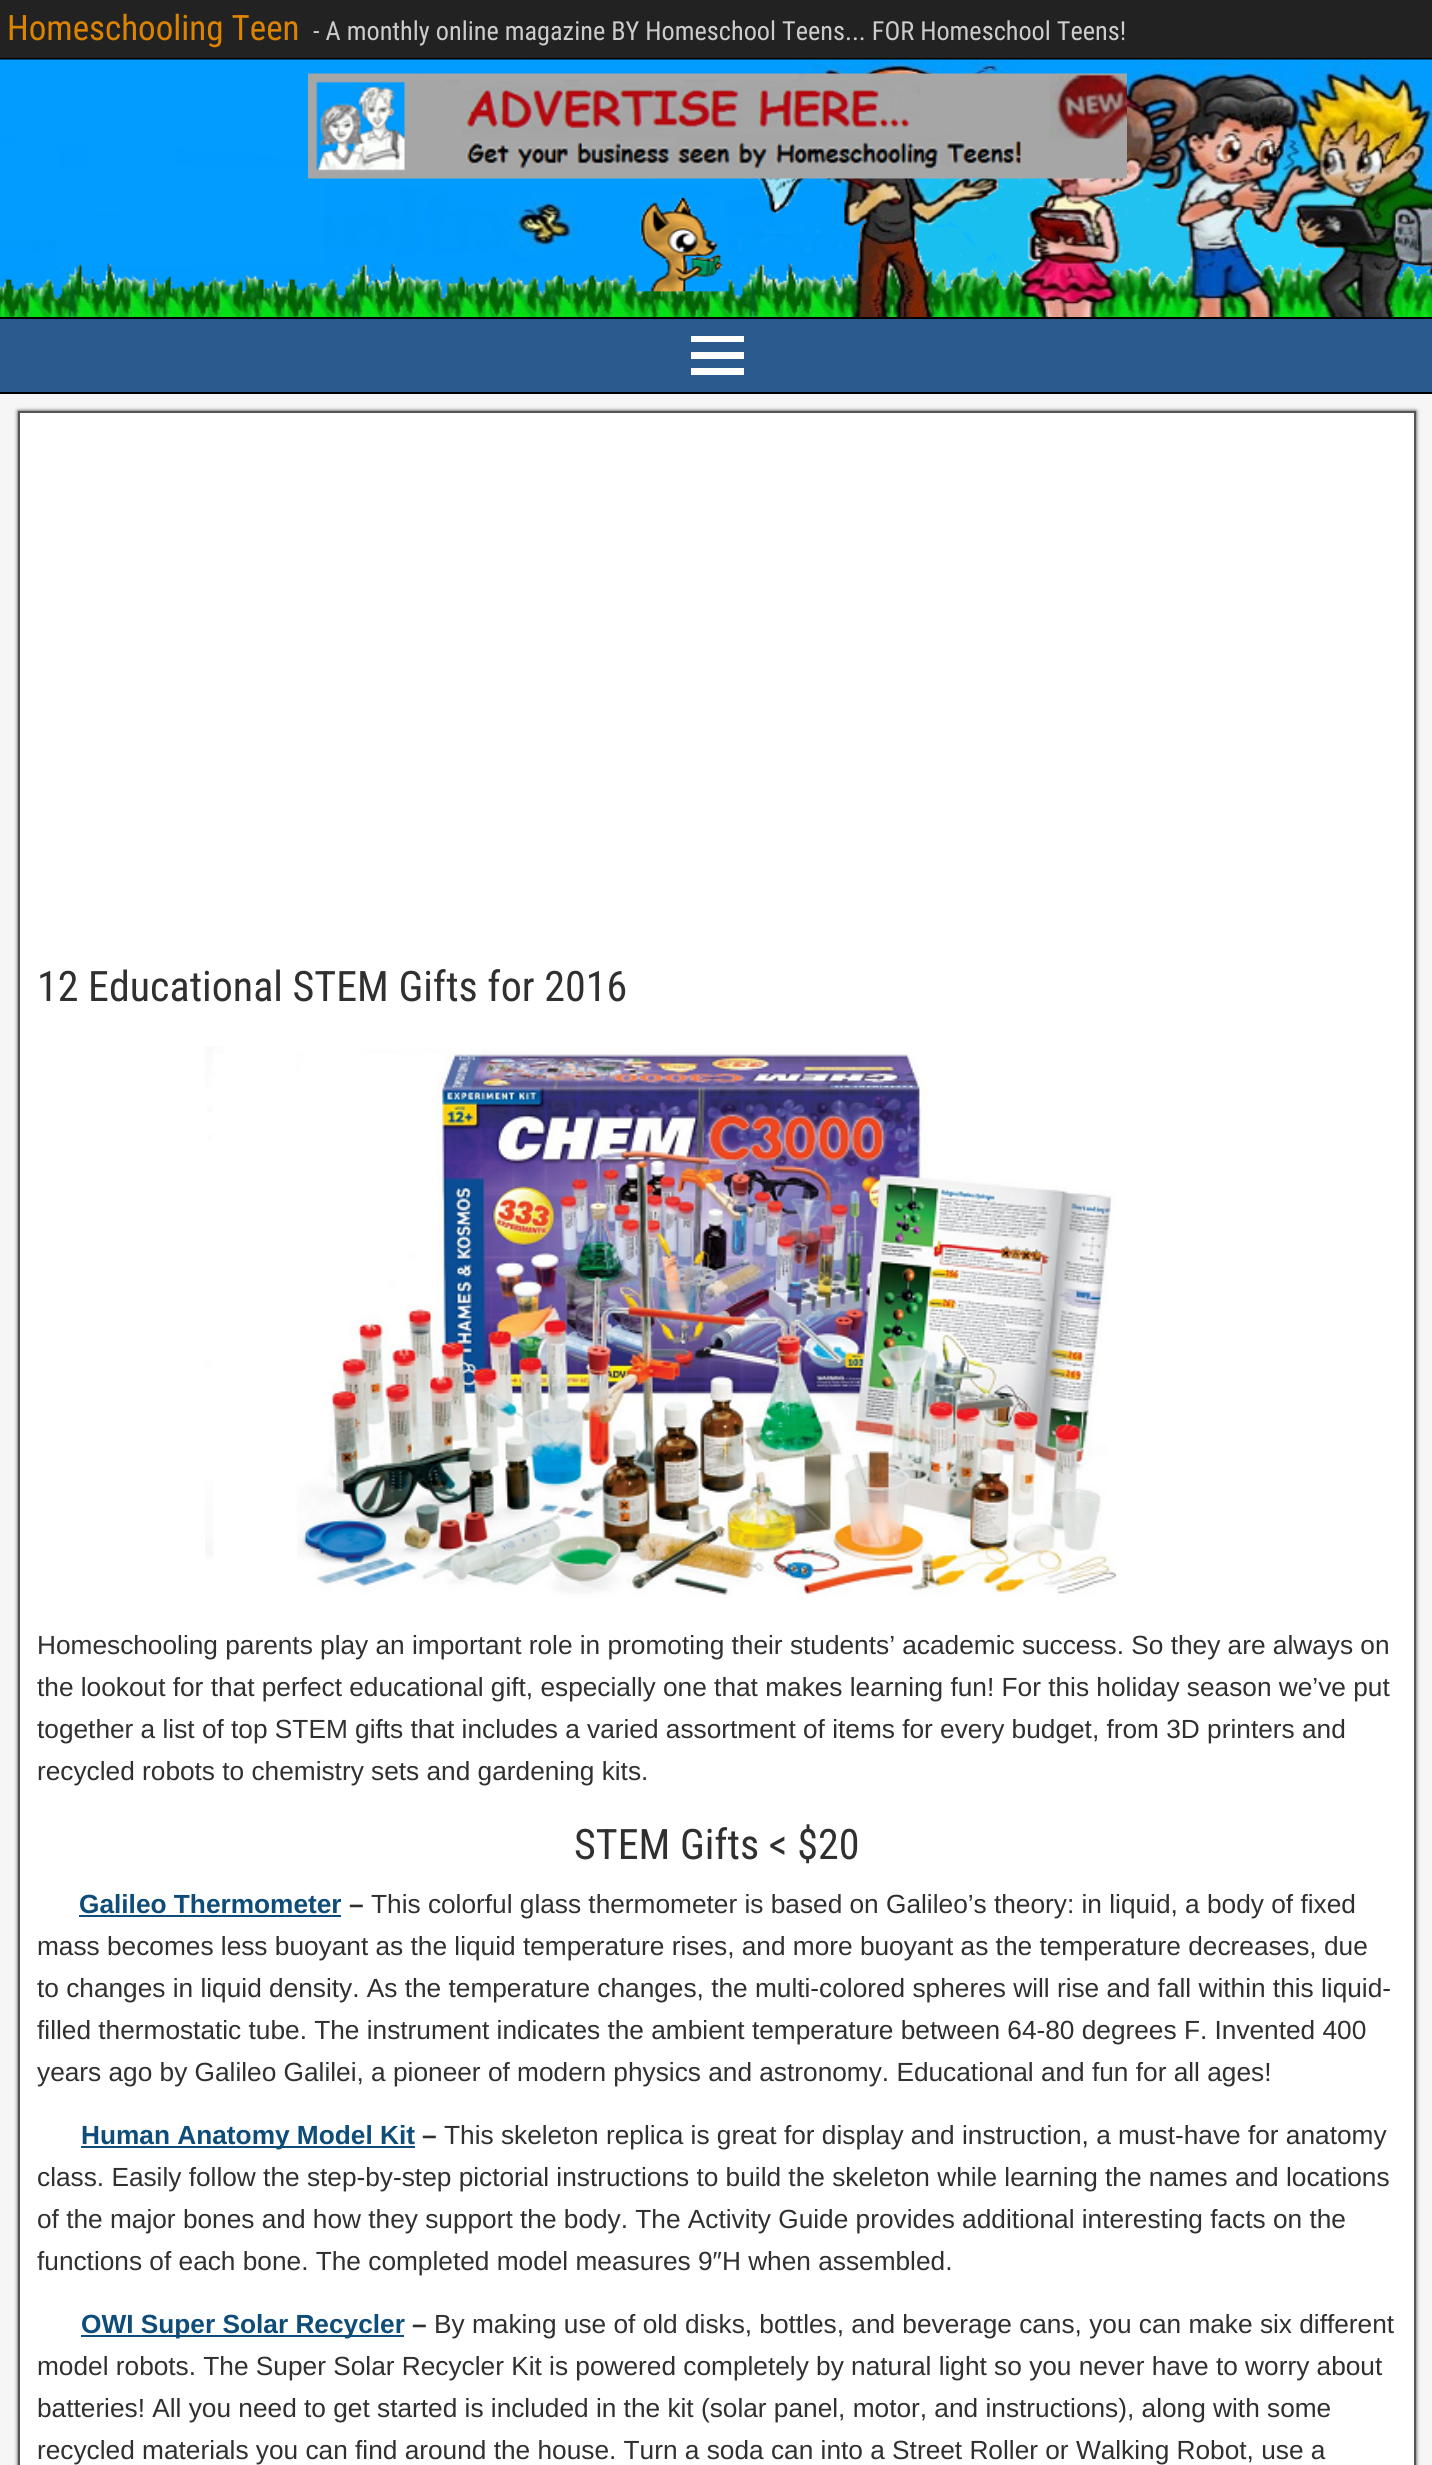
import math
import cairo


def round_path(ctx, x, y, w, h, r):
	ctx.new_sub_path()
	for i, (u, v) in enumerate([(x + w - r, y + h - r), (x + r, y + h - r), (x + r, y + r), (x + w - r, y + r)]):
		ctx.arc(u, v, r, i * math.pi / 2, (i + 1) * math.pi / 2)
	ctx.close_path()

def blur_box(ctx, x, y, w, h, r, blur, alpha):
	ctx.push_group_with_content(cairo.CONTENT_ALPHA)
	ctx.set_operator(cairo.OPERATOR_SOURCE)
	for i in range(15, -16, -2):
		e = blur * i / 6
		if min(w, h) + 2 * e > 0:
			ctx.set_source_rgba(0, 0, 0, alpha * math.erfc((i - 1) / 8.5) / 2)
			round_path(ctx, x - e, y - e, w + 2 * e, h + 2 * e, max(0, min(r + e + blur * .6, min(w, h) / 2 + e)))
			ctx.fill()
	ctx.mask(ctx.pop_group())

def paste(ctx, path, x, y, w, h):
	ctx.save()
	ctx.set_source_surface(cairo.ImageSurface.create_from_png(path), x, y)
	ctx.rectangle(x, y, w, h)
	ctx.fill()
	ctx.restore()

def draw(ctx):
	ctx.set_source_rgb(0.133, 0.133, 0.133)
	ctx.paint()
	ctx.set_source_rgb(0, 0, 0)
	ctx.rectangle(0, 58, 1432, 2)
	ctx.fill()
	ctx.select_font_face('Roboto Condensed')
	ctx.set_font_size(35)
	ctx.set_source_rgb(0.863, 0.514, 0)
	ctx.move_to(7, 40)
	ctx.show_text('Homeschooling Teen')
	ctx.set_font_size(26.25)
	ctx.set_source_rgb(0.8, 0.8, 0.8)
	ctx.move_to(313, 40)
	ctx.show_text('- A monthly online magazine BY Homeschool Teens... FOR Homeschool Teens!')
	paste(ctx, 'media/1.png', 0, 59, 1432, 258)
	ctx.set_source_rgb(0, 0, 0)
	ctx.rectangle(0, 317, 1432, 2)
	ctx.fill()
	paste(ctx, 'media/2.png', 308, 73, 819, 106)
	ctx.set_source_rgb(0.165, 0.353, 0.557)
	ctx.rectangle(0, 319, 1432, 73)
	ctx.fill()
	ctx.set_source_rgb(0, 0, 0)
	ctx.rectangle(0, 392, 1432, 2)
	ctx.fill()
	ctx.set_source_rgb(1, 1, 1)
	ctx.new_path()
	ctx.move_to(691, 375)
	ctx.line_to(691, 368)
	ctx.line_to(744, 368)
	ctx.line_to(744, 375)
	ctx.close_path()
	ctx.move_to(691, 336)
	ctx.line_to(744, 336)
	ctx.line_to(744, 342)
	ctx.line_to(691, 342)
	ctx.close_path()
	ctx.move_to(691, 359)
	ctx.line_to(691, 352)
	ctx.line_to(744, 352)
	ctx.line_to(744, 359)
	ctx.close_path()
	ctx.fill()
	ctx.set_source_rgb(0.961, 0.961, 0.961)
	ctx.rectangle(0, 394, 1432, 2071)
	ctx.fill()
	ctx.set_source_rgb(0.2, 0.2, 0.2)
	blur_box(ctx, 18, 411, 1398, 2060, 0, 2, 1)
	ctx.set_source_rgb(1, 1, 1)
	ctx.rectangle(19, 412, 1396, 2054)
	ctx.fill_preserve()
	ctx.set_source_rgb(0.333, 0.333, 0.333)
	ctx.stroke()
	ctx.set_font_size(42)
	ctx.set_source_rgb(0.188, 0.188, 0.188)
	ctx.move_to(37, 1001)
	ctx.show_text('12 Educational STEM Gifts for 2016')
	paste(ctx, 'media/3.png', 205, 1046, 912, 552)
	ctx.select_font_face('Arimo')
	ctx.set_font_size(26.25)
	for x, y, s in [
		(37, 1654, 'Homeschooling parents play an important role in promoting their students’ academic success. So they are always on'),
		(37, 1696, 'the lookout for that perfect educational gift, especially one that makes learning fun! For this holiday season we’ve put'),
		(37, 1738, 'together a list of top STEM gifts that includes a varied assortment of items for every budget, from 3D printers and'),
		(37, 1780, 'recycled robots to chemistry sets and gardening kits.'),
	]:
		ctx.move_to(x, y)
		ctx.show_text(s)
	ctx.select_font_face('Roboto Condensed')
	ctx.set_font_size(42)
	ctx.move_to(574, 1859)
	ctx.show_text('STEM Gifts < $20')
	ctx.select_font_face('Arimo', cairo.FONT_SLANT_NORMAL, cairo.FONT_WEIGHT_BOLD)
	ctx.set_font_size(26.25)
	ctx.set_source_rgb(0.055, 0.302, 0.478)
	ctx.move_to(79, 1913)
	ctx.show_text('Galileo Thermometer')
	ctx.rectangle(79, 1915, 262, 2)
	ctx.fill()
	ctx.set_source_rgb(0.188, 0.188, 0.188)
	ctx.move_to(349, 1913)
	ctx.show_text('–')
	ctx.select_font_face('Arimo')
	for x, y, s in [
		(371, 1913, 'This colorful glass thermometer is based on Galileo’s theory: in liquid, a body of fixed'),
		(37, 1955, 'mass becomes less buoyant as the liquid temperature rises, and more buoyant as the temperature decreases, due'),
		(37, 1997, 'to changes in liquid density. As the temperature changes, the multi-colored spheres will rise and fall within this liquid-'),
		(37, 2039, 'filled thermostatic tube. The instrument indicates the ambient temperature between 64-80 degrees F. Invented 400'),
		(37, 2081, 'years ago by Galileo Galilei, a pioneer of modern physics and astronomy. Educational and fun for all ages!'),
	]:
		ctx.move_to(x, y)
		ctx.show_text(s)
	ctx.set_source_rgb(0.055, 0.302, 0.478)
	ctx.rectangle(81, 2146, 334, 2)
	ctx.fill()
	ctx.select_font_face('Arimo', cairo.FONT_SLANT_NORMAL, cairo.FONT_WEIGHT_BOLD)
	ctx.move_to(81, 2144)
	ctx.show_text('Human Anatomy Model Kit')
	ctx.set_source_rgb(0.188, 0.188, 0.188)
	ctx.move_to(422, 2144)
	ctx.show_text('–')
	ctx.select_font_face('Arimo')
	for x, y, s in [
		(444, 2144, 'This skeleton replica is great for display and instruction, a must-have for anatomy'),
		(37, 2186, 'class. Easily follow the step-by-step pictorial instructions to build the skeleton while learning the names and locations'),
		(37, 2228, 'of the major bones and how they support the body. The Activity Guide provides additional interesting facts on the'),
		(37, 2270, 'functions of each bone. The completed model measures 9″H when assembled.'),
	]:
		ctx.move_to(x, y)
		ctx.show_text(s)
	ctx.set_source_rgb(0.055, 0.302, 0.478)
	ctx.rectangle(81, 2335, 323, 2)
	ctx.fill()
	ctx.select_font_face('Arimo', cairo.FONT_SLANT_NORMAL, cairo.FONT_WEIGHT_BOLD)
	ctx.move_to(81, 2333)
	ctx.show_text('OWI Super Solar Recycler')
	ctx.set_source_rgb(0.188, 0.188, 0.188)
	ctx.move_to(412, 2333)
	ctx.show_text('–')
	ctx.select_font_face('Arimo')
	for x, y, s in [
		(434, 2333, 'By making use of old disks, bottles, and beverage cans, you can make six different'),
		(37, 2375, 'model robots. The Super Solar Recycler Kit is powered completely by natural light so you never have to worry about'),
		(37, 2417, 'batteries! All you need to get started is included in the kit (solar panel, motor, and instructions), along with some'),
		(37, 2459, 'recycled materials you can find around the house. Turn a soda can into a Street Roller or Walking Robot, use a'),
	]:
		ctx.move_to(x, y)
		ctx.show_text(s)


surface = cairo.ImageSurface(cairo.FORMAT_RGB24, 1432, 2465)
ctx = cairo.Context(surface)
options = cairo.FontOptions()
options.set_hint_metrics(cairo.HINT_METRICS_OFF)
options.set_hint_style(cairo.HINT_STYLE_NONE)
ctx.set_font_options(options)
ctx.set_miter_limit(4)
draw(ctx)
surface.write_to_png('image.png')
